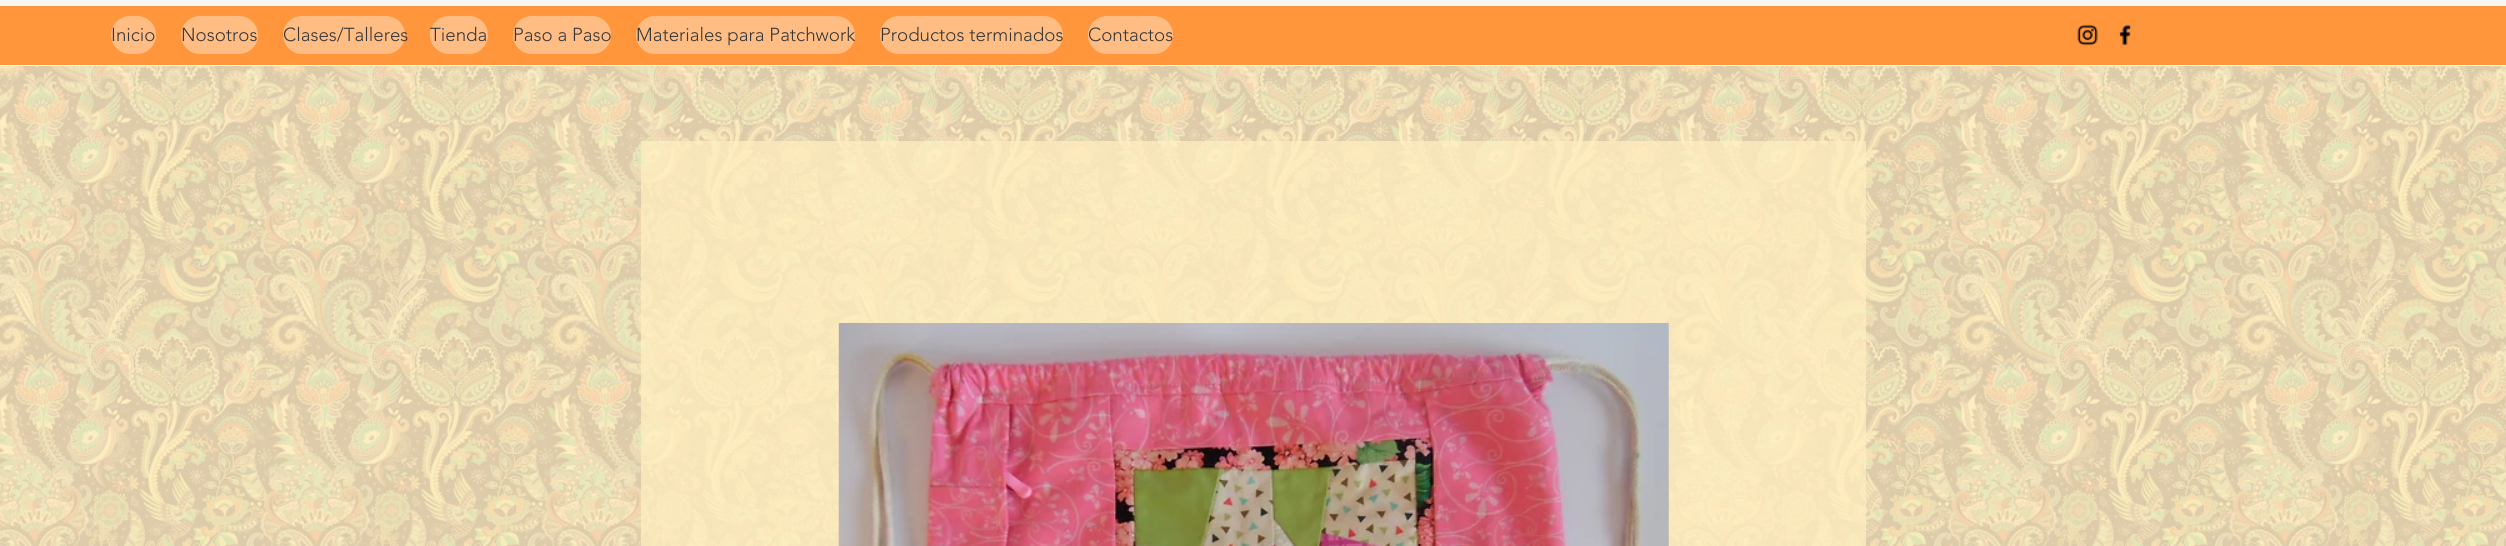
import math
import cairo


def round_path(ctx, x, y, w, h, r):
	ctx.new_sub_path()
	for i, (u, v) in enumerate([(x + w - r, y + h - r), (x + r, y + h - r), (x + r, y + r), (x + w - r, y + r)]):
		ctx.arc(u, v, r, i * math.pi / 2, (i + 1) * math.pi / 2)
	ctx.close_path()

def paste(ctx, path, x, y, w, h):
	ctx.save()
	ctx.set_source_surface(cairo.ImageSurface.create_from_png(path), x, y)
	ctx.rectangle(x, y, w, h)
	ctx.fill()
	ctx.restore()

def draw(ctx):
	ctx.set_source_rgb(1, 0.929, 0.749)
	ctx.paint()
	ctx.set_source_rgb(0.969, 0.969, 0.969)
	ctx.rectangle(0, 0, 2506, 6)
	ctx.fill()
	ctx.set_source_rgb(1, 0.588, 0.231)
	ctx.rectangle(0, 6, 2506, 59)
	ctx.fill()
	ctx.set_source_rgb(1, 0.741, 0.518)
	round_path(ctx, 111, 16, 45, 38, 19)
	ctx.fill()
	ctx.select_font_face('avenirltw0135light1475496 Light')
	ctx.set_font_size(18.75)
	ctx.set_source_rgb(0.22, 0.22, 0.22)
	ctx.move_to(111, 41)
	ctx.show_text('Inicio')
	ctx.set_source_rgb(1, 0.741, 0.518)
	round_path(ctx, 181, 16, 77, 38, 19)
	ctx.fill()
	ctx.set_source_rgb(0.22, 0.22, 0.22)
	ctx.move_to(181, 41)
	ctx.show_text('Nosotros')
	ctx.set_source_rgb(1, 0.741, 0.518)
	round_path(ctx, 283, 16, 122, 38, 19)
	ctx.fill()
	ctx.set_source_rgb(0.22, 0.22, 0.22)
	ctx.move_to(283, 41)
	ctx.show_text('Clases/Talleres')
	ctx.set_source_rgb(1, 0.741, 0.518)
	round_path(ctx, 430, 16, 58, 38, 19)
	ctx.fill()
	ctx.set_source_rgb(0.22, 0.22, 0.22)
	ctx.move_to(430, 41)
	ctx.show_text('Tienda')
	ctx.set_source_rgb(1, 0.741, 0.518)
	round_path(ctx, 513, 16, 98, 38, 19)
	ctx.fill()
	ctx.set_source_rgb(0.22, 0.22, 0.22)
	ctx.move_to(513, 41)
	ctx.show_text('Paso a Paso')
	ctx.set_source_rgb(1, 0.741, 0.518)
	round_path(ctx, 636, 16, 219, 38, 19)
	ctx.fill()
	ctx.set_source_rgb(0.22, 0.22, 0.22)
	ctx.move_to(636, 41)
	ctx.show_text('Materiales para Patchwork')
	ctx.set_source_rgb(1, 0.741, 0.518)
	round_path(ctx, 880, 16, 183, 38, 19)
	ctx.fill()
	ctx.set_source_rgb(0.22, 0.22, 0.22)
	ctx.move_to(880, 41)
	ctx.show_text('Productos terminados')
	ctx.set_source_rgb(1, 0.741, 0.518)
	round_path(ctx, 1088, 16, 85, 38, 19)
	ctx.fill()
	ctx.set_source_rgb(0.22, 0.22, 0.22)
	ctx.move_to(1088, 41)
	ctx.show_text('Contactos')
	paste(ctx, 'media/1.png', 2077, 24, 21, 22)
	paste(ctx, 'media/2.png', 2119, 24, 12, 22)
	ctx.set_source_rgb(1, 1, 1)
	ctx.rectangle(0, 65, 2506, 1)
	ctx.fill()
	paste(ctx, 'media/4.png', 0, 66, 2506, 480)
	ctx.set_source_rgba(1, 0.929, 0.749, 0.75)
	ctx.rectangle(641, 141, 1225, 405)
	ctx.fill()
	paste(ctx, 'media/3.png', 838, 323, 831, 223)


surface = cairo.ImageSurface(cairo.FORMAT_RGB24, 2506, 546)
ctx = cairo.Context(surface)
options = cairo.FontOptions()
options.set_hint_metrics(cairo.HINT_METRICS_OFF)
options.set_hint_style(cairo.HINT_STYLE_NONE)
ctx.set_font_options(options)
ctx.set_miter_limit(4)
draw(ctx)
surface.write_to_png('image.png')
